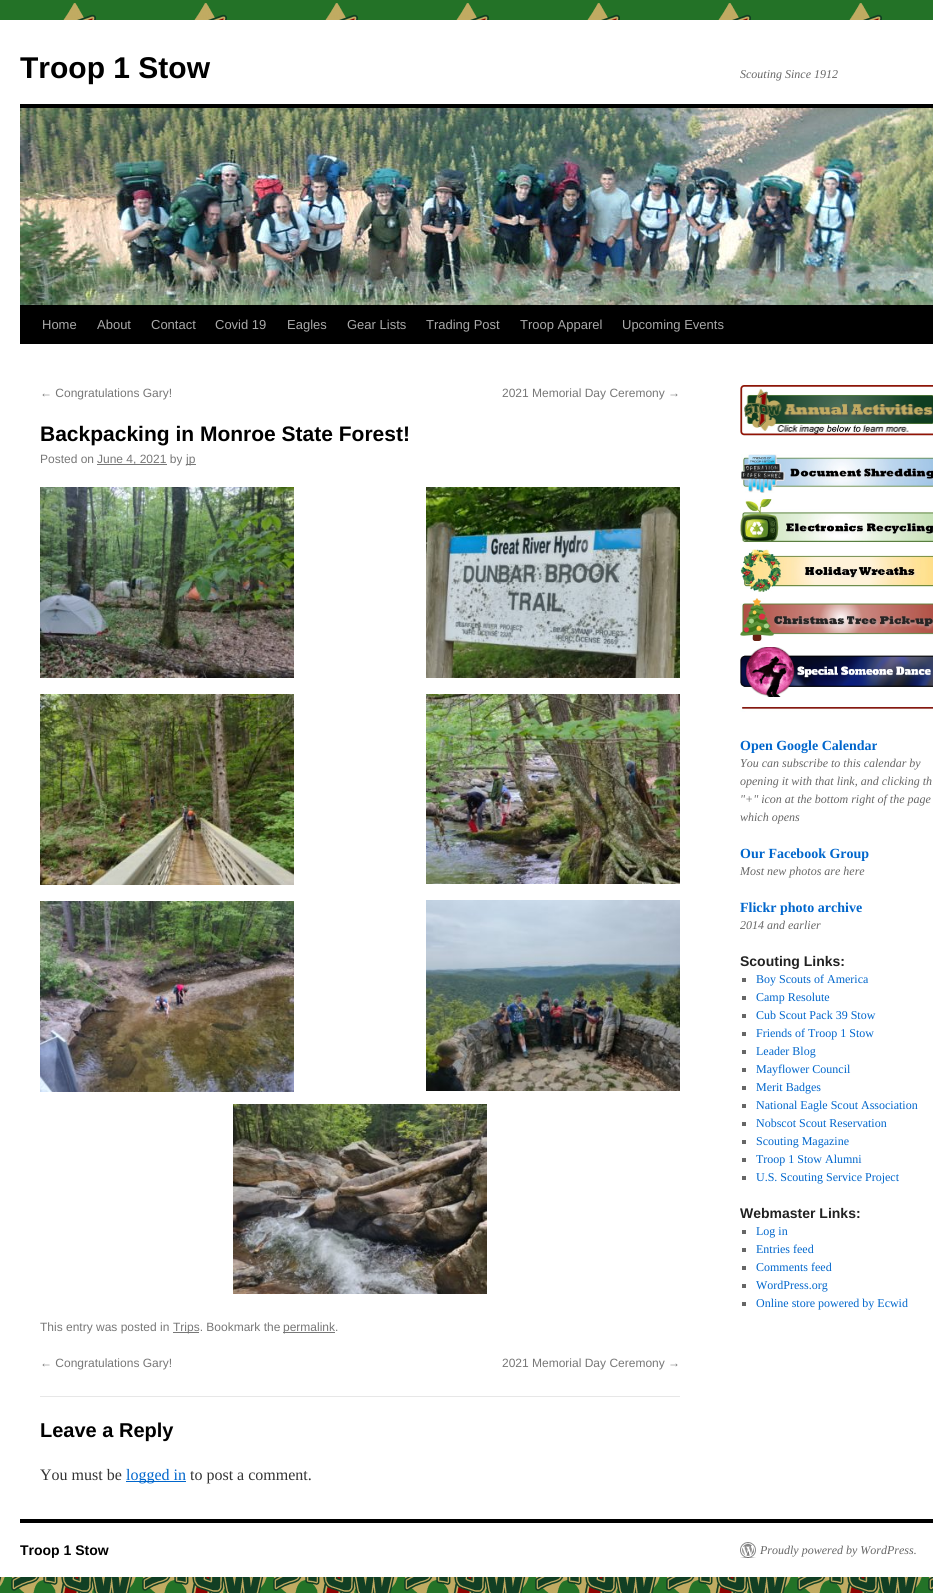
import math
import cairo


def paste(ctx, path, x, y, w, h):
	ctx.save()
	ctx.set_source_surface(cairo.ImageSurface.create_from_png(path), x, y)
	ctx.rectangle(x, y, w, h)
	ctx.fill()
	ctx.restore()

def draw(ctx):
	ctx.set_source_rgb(0.137, 0.447, 0.153)
	ctx.paint()
	paste(ctx, 'media/1.png', 0, 3, 933, 1590)
	ctx.set_source_rgb(1, 1, 1)
	ctx.rectangle(0, 20, 933, 1557)
	ctx.fill()
	ctx.select_font_face('Liberation Sans', cairo.FONT_SLANT_NORMAL, cairo.FONT_WEIGHT_BOLD)
	ctx.set_font_size(30)
	ctx.set_source_rgb(0, 0, 0)
	ctx.move_to(20, 78)
	ctx.show_text('Troop 1 Stow')
	ctx.select_font_face('Liberation Serif', cairo.FONT_SLANT_ITALIC)
	ctx.set_font_size(12)
	ctx.set_source_rgb(0.4, 0.4, 0.4)
	ctx.move_to(740, 78)
	ctx.show_text('Scouting Since 1912')
	ctx.set_source_rgb(0, 0, 0)
	ctx.rectangle(20, 104, 913, 4)
	ctx.fill()
	ctx.rectangle(20, 305, 913, 39)
	ctx.fill()
	paste(ctx, 'media/2.png', 20, 108, 913, 197)
	ctx.select_font_face('Liberation Sans')
	ctx.set_font_size(13)
	ctx.set_source_rgb(0.667, 0.667, 0.667)
	for x, y, s in [
		(42, 329, 'Home'),
		(97, 329, 'About'),
		(151, 329, 'Contact'),
		(215, 329, 'Covid 19'),
		(287, 329, 'Eagles'),
		(347, 329, 'Gear Lists'),
		(426, 329, 'Trading Post'),
		(520, 329, 'Troop Apparel'),
		(622, 329, 'Upcoming Events'),
	]:
		ctx.move_to(x, y)
		ctx.show_text(s)
	ctx.set_font_size(12)
	ctx.set_source_rgb(0.467, 0.467, 0.467)
	ctx.move_to(40, 397)
	ctx.show_text('← Congratulations Gary!')
	ctx.move_to(502, 397)
	ctx.show_text('2021 Memorial Day Ceremony →')
	ctx.select_font_face('Liberation Sans', cairo.FONT_SLANT_NORMAL, cairo.FONT_WEIGHT_BOLD)
	ctx.set_font_size(21)
	ctx.set_source_rgb(0, 0, 0)
	ctx.move_to(40, 441)
	ctx.show_text('Backpacking in Monroe State Forest!')
	ctx.select_font_face('Liberation Sans')
	ctx.set_font_size(12)
	ctx.set_source_rgb(0.467, 0.467, 0.467)
	ctx.move_to(40, 463)
	ctx.show_text('Posted on')
	ctx.rectangle(97, 464, 70, 1)
	ctx.fill()
	ctx.move_to(97, 463)
	ctx.show_text('June 4, 2021 by')
	ctx.rectangle(186, 464, 10, 1)
	ctx.fill()
	ctx.move_to(186, 463)
	ctx.show_text('jp')
	paste(ctx, 'media/3.png', 40, 487, 254, 191)
	paste(ctx, 'media/4.png', 426, 487, 254, 191)
	paste(ctx, 'media/5.png', 40, 694, 254, 191)
	paste(ctx, 'media/6.png', 426, 694, 254, 190)
	paste(ctx, 'media/7.png', 40, 901, 254, 191)
	paste(ctx, 'media/8.png', 426, 900, 254, 191)
	paste(ctx, 'media/9.png', 233, 1104, 254, 190)
	ctx.move_to(40, 1331)
	ctx.show_text('This entry was posted in')
	ctx.rectangle(173, 1332, 26, 1)
	ctx.fill()
	ctx.move_to(173, 1331)
	ctx.show_text('Trips. Bookmark the')
	ctx.rectangle(283, 1332, 52, 1)
	ctx.fill()
	for x, y, s in [
		(283, 1331, 'permalink.'),
		(40, 1367, '← Congratulations Gary!'),
		(502, 1367, '2021 Memorial Day Ceremony →'),
	]:
		ctx.move_to(x, y)
		ctx.show_text(s)
	ctx.set_source_rgb(0.906, 0.906, 0.906)
	ctx.rectangle(40, 1396, 640, 1)
	ctx.fill()
	ctx.select_font_face('Liberation Sans', cairo.FONT_SLANT_NORMAL, cairo.FONT_WEIGHT_BOLD)
	ctx.set_font_size(20)
	ctx.set_source_rgb(0, 0, 0)
	ctx.move_to(40, 1437)
	ctx.show_text('Leave a Reply')
	ctx.select_font_face('Liberation Serif')
	ctx.set_font_size(16)
	ctx.set_source_rgb(0.2, 0.2, 0.2)
	ctx.move_to(40, 1480)
	ctx.show_text('You must be')
	ctx.set_source_rgb(0, 0.4, 0.8)
	ctx.rectangle(126, 1481, 60, 1)
	ctx.fill()
	ctx.move_to(126, 1480)
	ctx.show_text('logged in')
	ctx.set_source_rgb(0.2, 0.2, 0.2)
	ctx.move_to(190, 1480)
	ctx.show_text('to post a comment.')
	paste(ctx, 'media/10.png', 740, 384, 193, 52)
	paste(ctx, 'media/11.png', 741, 454, 192, 39)
	paste(ctx, 'media/12.png', 740, 499, 193, 44)
	paste(ctx, 'media/13.png', 740, 549, 193, 43)
	paste(ctx, 'media/14.png', 740, 598, 193, 43)
	paste(ctx, 'media/15.png', 740, 647, 193, 50)
	paste(ctx, 'media/16.png', 740, 706, 193, 6)
	ctx.select_font_face('Liberation Serif', cairo.FONT_SLANT_NORMAL, cairo.FONT_WEIGHT_BOLD)
	ctx.set_font_size(14)
	ctx.set_source_rgb(0, 0.4, 0.8)
	ctx.move_to(740, 750)
	ctx.show_text('Open Google Calendar')
	ctx.select_font_face('Liberation Serif', cairo.FONT_SLANT_ITALIC)
	ctx.set_font_size(12)
	ctx.set_source_rgb(0.4, 0.4, 0.4)
	for x, y, s in [
		(740, 767, 'You can subscribe to this calendar by'),
		(740, 785, 'opening it with that link, and clicking th'),
		(740, 803, '"+" icon at the bottom right of the page'),
		(740, 821, 'which opens'),
	]:
		ctx.move_to(x, y)
		ctx.show_text(s)
	ctx.select_font_face('Liberation Serif', cairo.FONT_SLANT_NORMAL, cairo.FONT_WEIGHT_BOLD)
	ctx.set_font_size(14)
	ctx.set_source_rgb(0, 0.4, 0.8)
	ctx.move_to(740, 858)
	ctx.show_text('Our Facebook Group')
	ctx.select_font_face('Liberation Serif', cairo.FONT_SLANT_ITALIC)
	ctx.set_font_size(12)
	ctx.set_source_rgb(0.4, 0.4, 0.4)
	ctx.move_to(740, 875)
	ctx.show_text('Most new photos are here')
	ctx.select_font_face('Liberation Serif', cairo.FONT_SLANT_NORMAL, cairo.FONT_WEIGHT_BOLD)
	ctx.set_font_size(14)
	ctx.set_source_rgb(0, 0.4, 0.8)
	ctx.move_to(740, 912)
	ctx.show_text('Flickr photo archive')
	ctx.select_font_face('Liberation Serif', cairo.FONT_SLANT_ITALIC)
	ctx.set_font_size(12)
	ctx.set_source_rgb(0.4, 0.4, 0.4)
	ctx.move_to(740, 929)
	ctx.show_text('2014 and earlier')
	ctx.select_font_face('Liberation Sans', cairo.FONT_SLANT_NORMAL, cairo.FONT_WEIGHT_BOLD)
	ctx.set_font_size(14)
	ctx.set_source_rgb(0.133, 0.133, 0.133)
	ctx.move_to(740, 966)
	ctx.show_text('Scouting Links:')
	ctx.set_source_rgb(0.4, 0.4, 0.4)
	ctx.rectangle(742, 978, 4, 4)
	ctx.fill()
	ctx.select_font_face('Liberation Serif')
	ctx.set_font_size(12)
	ctx.set_source_rgb(0, 0.4, 0.8)
	ctx.move_to(756, 983)
	ctx.show_text('Boy Scouts of America')
	ctx.set_source_rgb(0.4, 0.4, 0.4)
	ctx.rectangle(742, 996, 4, 4)
	ctx.fill()
	ctx.set_source_rgb(0, 0.4, 0.8)
	ctx.move_to(756, 1001)
	ctx.show_text('Camp Resolute')
	ctx.set_source_rgb(0.4, 0.4, 0.4)
	ctx.rectangle(742, 1014, 4, 4)
	ctx.fill()
	ctx.set_source_rgb(0, 0.4, 0.8)
	ctx.move_to(756, 1019)
	ctx.show_text('Cub Scout Pack 39 Stow')
	ctx.set_source_rgb(0.4, 0.4, 0.4)
	ctx.rectangle(742, 1032, 4, 4)
	ctx.fill()
	ctx.set_source_rgb(0, 0.4, 0.8)
	ctx.move_to(756, 1037)
	ctx.show_text('Friends of Troop 1 Stow')
	ctx.set_source_rgb(0.4, 0.4, 0.4)
	ctx.rectangle(742, 1050, 4, 4)
	ctx.fill()
	ctx.set_source_rgb(0, 0.4, 0.8)
	ctx.move_to(756, 1055)
	ctx.show_text('Leader Blog')
	ctx.set_source_rgb(0.4, 0.4, 0.4)
	ctx.rectangle(742, 1068, 4, 4)
	ctx.fill()
	ctx.set_source_rgb(0, 0.4, 0.8)
	ctx.move_to(756, 1073)
	ctx.show_text('Mayflower Council')
	ctx.set_source_rgb(0.4, 0.4, 0.4)
	ctx.rectangle(742, 1086, 4, 4)
	ctx.fill()
	ctx.set_source_rgb(0, 0.4, 0.8)
	ctx.move_to(756, 1091)
	ctx.show_text('Merit Badges')
	ctx.set_source_rgb(0.4, 0.4, 0.4)
	ctx.rectangle(742, 1104, 4, 4)
	ctx.fill()
	ctx.set_source_rgb(0, 0.4, 0.8)
	ctx.move_to(756, 1109)
	ctx.show_text('National Eagle Scout Association')
	ctx.set_source_rgb(0.4, 0.4, 0.4)
	ctx.rectangle(742, 1122, 4, 4)
	ctx.fill()
	ctx.set_source_rgb(0, 0.4, 0.8)
	ctx.move_to(756, 1127)
	ctx.show_text('Nobscot Scout Reservation')
	ctx.set_source_rgb(0.4, 0.4, 0.4)
	ctx.rectangle(742, 1140, 4, 4)
	ctx.fill()
	ctx.set_source_rgb(0, 0.4, 0.8)
	ctx.move_to(756, 1145)
	ctx.show_text('Scouting Magazine')
	ctx.set_source_rgb(0.4, 0.4, 0.4)
	ctx.rectangle(742, 1158, 4, 4)
	ctx.fill()
	ctx.set_source_rgb(0, 0.4, 0.8)
	ctx.move_to(756, 1163)
	ctx.show_text('Troop 1 Stow Alumni')
	ctx.set_source_rgb(0.4, 0.4, 0.4)
	ctx.rectangle(742, 1176, 4, 4)
	ctx.fill()
	ctx.set_source_rgb(0, 0.4, 0.8)
	ctx.move_to(756, 1181)
	ctx.show_text('U.S. Scouting Service Project')
	ctx.select_font_face('Liberation Sans', cairo.FONT_SLANT_NORMAL, cairo.FONT_WEIGHT_BOLD)
	ctx.set_font_size(14)
	ctx.set_source_rgb(0.133, 0.133, 0.133)
	ctx.move_to(740, 1218)
	ctx.show_text('Webmaster Links:')
	ctx.set_source_rgb(0.4, 0.4, 0.4)
	ctx.rectangle(742, 1230, 4, 4)
	ctx.fill()
	ctx.select_font_face('Liberation Serif')
	ctx.set_font_size(12)
	ctx.set_source_rgb(0, 0.4, 0.8)
	ctx.move_to(756, 1235)
	ctx.show_text('Log in')
	ctx.set_source_rgb(0.4, 0.4, 0.4)
	ctx.rectangle(742, 1248, 4, 4)
	ctx.fill()
	ctx.set_source_rgb(0, 0.4, 0.8)
	ctx.move_to(756, 1253)
	ctx.show_text('Entries feed')
	ctx.set_source_rgb(0.4, 0.4, 0.4)
	ctx.rectangle(742, 1266, 4, 4)
	ctx.fill()
	ctx.set_source_rgb(0, 0.4, 0.8)
	ctx.move_to(756, 1271)
	ctx.show_text('Comments feed')
	ctx.set_source_rgb(0.4, 0.4, 0.4)
	ctx.rectangle(742, 1284, 4, 4)
	ctx.fill()
	ctx.set_source_rgb(0, 0.4, 0.8)
	ctx.move_to(756, 1289)
	ctx.show_text('WordPress.org')
	ctx.set_source_rgb(0.4, 0.4, 0.4)
	ctx.rectangle(742, 1302, 4, 4)
	ctx.fill()
	ctx.set_source_rgb(0, 0.4, 0.8)
	ctx.move_to(756, 1307)
	ctx.show_text('Online store powered by Ecwid')
	ctx.set_source_rgb(0, 0, 0)
	ctx.rectangle(20, 1519, 913, 4)
	ctx.fill()
	ctx.select_font_face('Liberation Sans', cairo.FONT_SLANT_NORMAL, cairo.FONT_WEIGHT_BOLD)
	ctx.set_font_size(14)
	ctx.move_to(20, 1555)
	ctx.show_text('Troop 1 Stow')
	paste(ctx, 'media/17.png', 740, 1542, 16, 16)
	ctx.select_font_face('Liberation Serif', cairo.FONT_SLANT_ITALIC)
	ctx.set_font_size(12)
	ctx.set_source_rgb(0.4, 0.4, 0.4)
	ctx.move_to(760, 1554)
	ctx.show_text('Proudly powered by WordPress.')


surface = cairo.ImageSurface(cairo.FORMAT_RGB24, 933, 1593)
ctx = cairo.Context(surface)
options = cairo.FontOptions()
options.set_hint_metrics(cairo.HINT_METRICS_OFF)
options.set_hint_style(cairo.HINT_STYLE_NONE)
ctx.set_font_options(options)
ctx.set_miter_limit(4)
draw(ctx)
surface.write_to_png('image.png')
